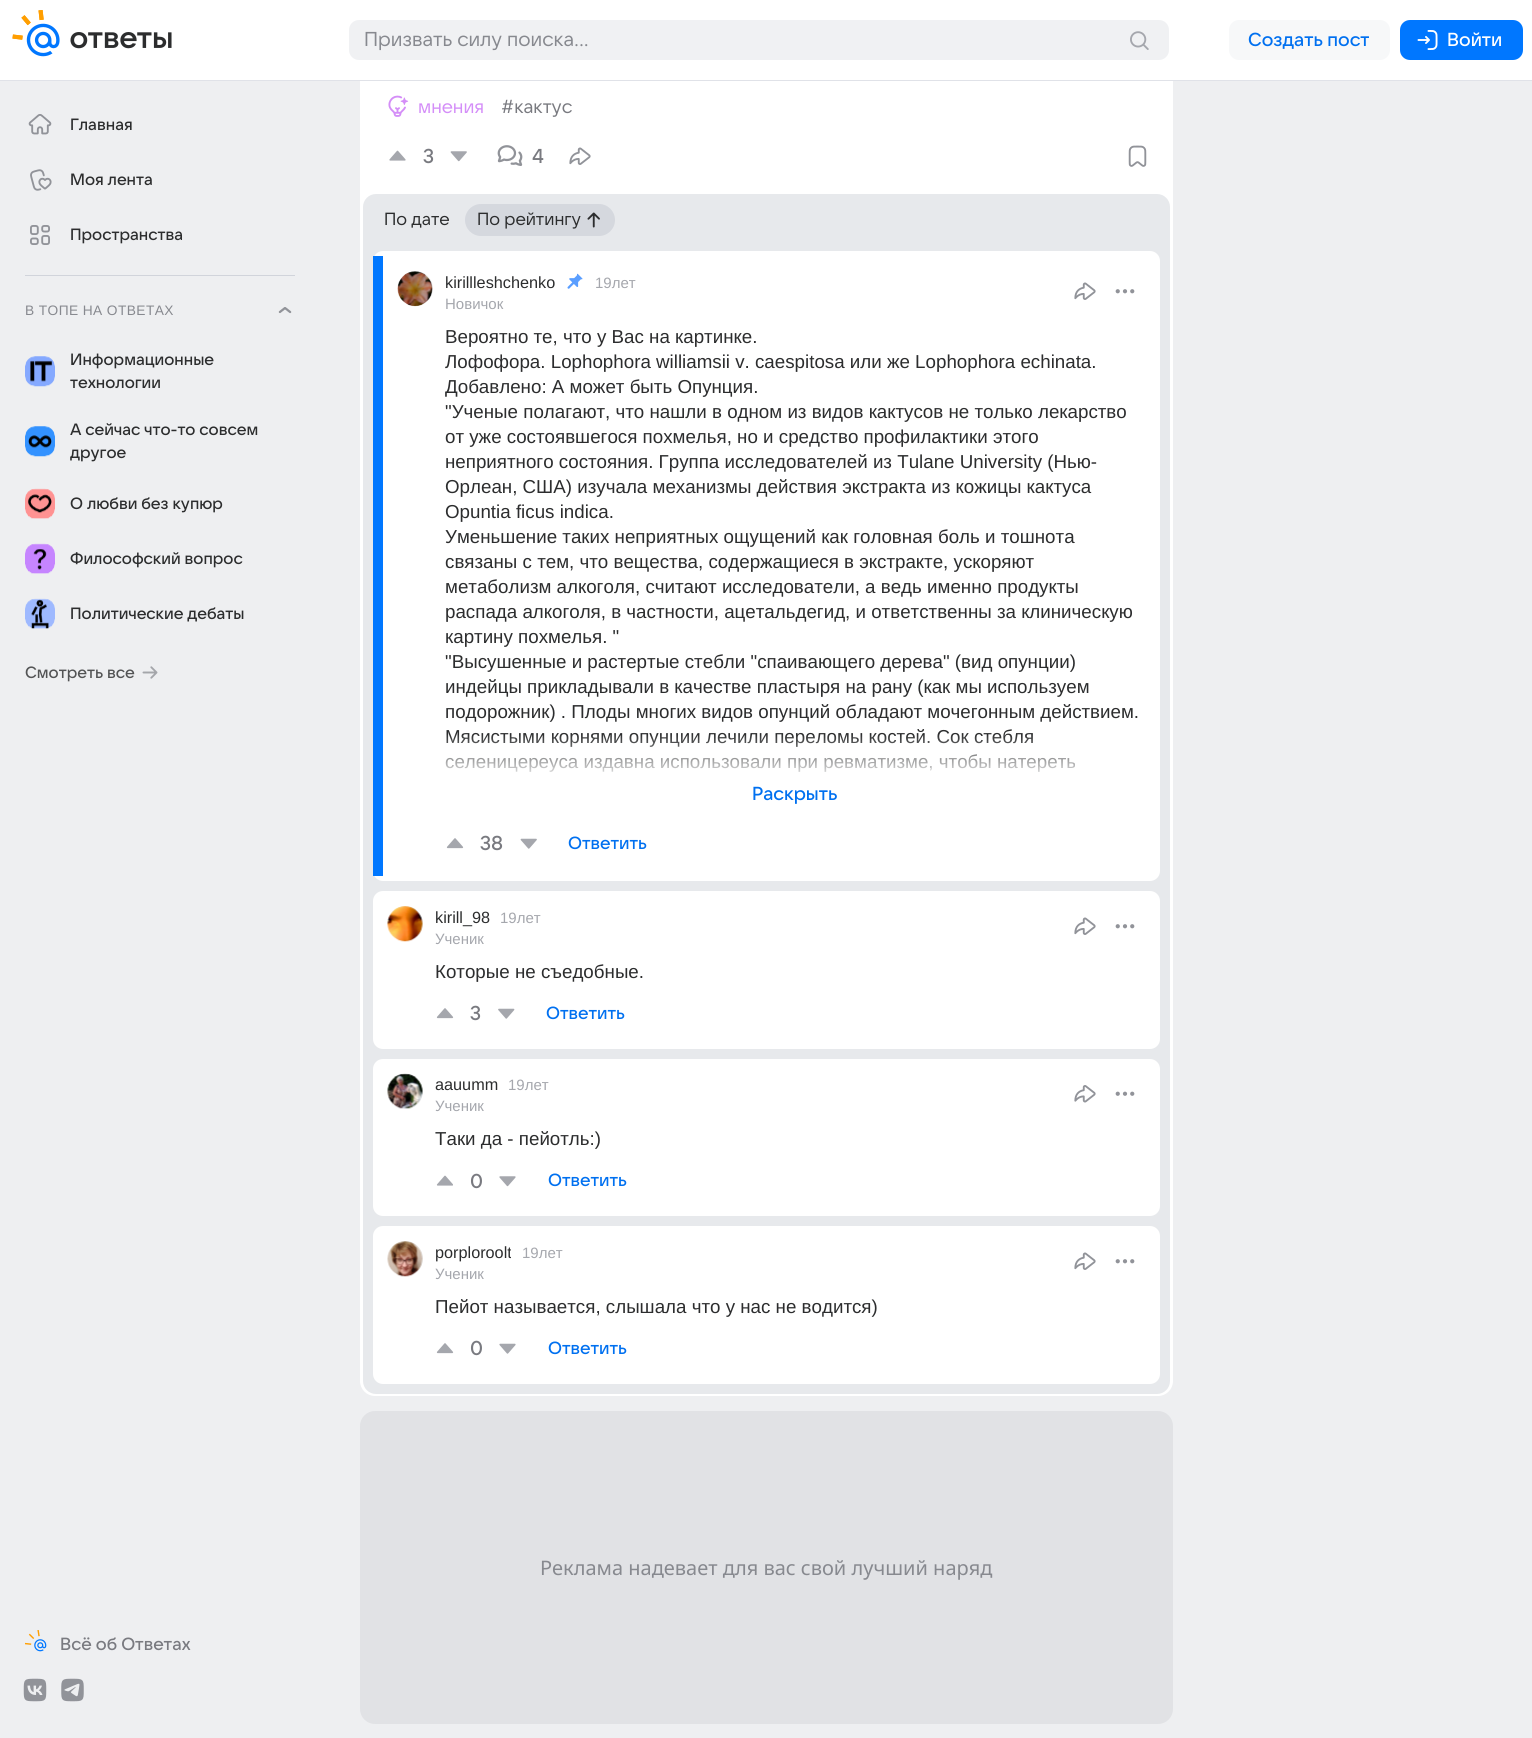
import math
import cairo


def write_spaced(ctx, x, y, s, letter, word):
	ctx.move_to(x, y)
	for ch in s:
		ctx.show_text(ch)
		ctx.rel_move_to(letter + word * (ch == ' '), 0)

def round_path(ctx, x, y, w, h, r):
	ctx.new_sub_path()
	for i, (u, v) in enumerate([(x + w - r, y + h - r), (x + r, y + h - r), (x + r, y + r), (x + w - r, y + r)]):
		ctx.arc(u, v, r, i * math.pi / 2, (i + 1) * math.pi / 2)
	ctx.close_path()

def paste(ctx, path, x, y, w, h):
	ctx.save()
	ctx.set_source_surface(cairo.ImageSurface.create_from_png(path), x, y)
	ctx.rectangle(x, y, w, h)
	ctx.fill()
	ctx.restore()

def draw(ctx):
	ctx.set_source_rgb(0.933, 0.937, 0.945)
	ctx.paint()
	ctx.set_source_rgb(1, 1, 1)
	round_path(ctx, 360, -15, 813, 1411, 15)
	ctx.fill()
	ctx.rectangle(0, 0, 1532, 80)
	ctx.fill()
	ctx.set_source_rgb(0.878, 0.886, 0.91)
	ctx.rectangle(0, 80, 1532, 1)
	ctx.fill()
	paste(ctx, 'media/1.png', 12, 10, 160, 47)
	ctx.set_source_rgb(0.941, 0.945, 0.953)
	round_path(ctx, 349, 20, 820, 40, 10)
	ctx.fill()
	ctx.select_font_face('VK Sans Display')
	ctx.set_font_size(20)
	ctx.set_source_rgb(0.529, 0.537, 0.561)
	ctx.move_to(364, 46)
	ctx.show_text('Призвать силу поиска...')
	paste(ctx, 'media/2.png', 1130, 31, 19, 19)
	ctx.set_source_rgb(0.965, 0.969, 0.973)
	round_path(ctx, 1229, 20, 161, 40, 10)
	ctx.fill()
	ctx.select_font_face('VK Sans Display Medium')
	ctx.set_font_size(18.75)
	ctx.set_source_rgb(0, 0.439, 0.941)
	ctx.move_to(1248, 46)
	ctx.show_text('Создать пост')
	ctx.set_source_rgb(0, 0.467, 1)
	round_path(ctx, 1400, 20, 123, 40, 10)
	ctx.fill()
	paste(ctx, 'media/3.png', 1417, 30, 21, 20)
	ctx.set_source_rgb(1, 1, 1)
	ctx.move_to(1447, 46)
	ctx.show_text('Войти')
	paste(ctx, 'media/4.png', 28, 114, 24, 21)
	ctx.set_font_size(16.25)
	ctx.set_source_rgb(0.173, 0.176, 0.18)
	ctx.move_to(70, 130)
	ctx.show_text('Главная')
	paste(ctx, 'media/5.png', 30, 169, 22, 22)
	ctx.move_to(70, 185)
	ctx.show_text('Моя лента')
	paste(ctx, 'media/6.png', 30, 225, 20, 20)
	ctx.move_to(70, 240)
	ctx.show_text('Пространства')
	ctx.set_source_rgb(0.82, 0.831, 0.859)
	ctx.rectangle(25, 275, 270, 1)
	ctx.fill()
	ctx.select_font_face('Liberation Sans')
	ctx.set_font_size(13.75)
	ctx.set_source_rgb(0.529, 0.537, 0.561)
	write_spaced(ctx, 25, 315, 'В ТОПЕ НА ОТВЕТАХ', 0.4, 0)
	paste(ctx, 'media/7.png', 278, 307, 14, 7)
	paste(ctx, 'media/8.png', 25, 356, 30, 31)
	ctx.select_font_face('VK Sans Display Medium')
	ctx.set_font_size(16.25)
	ctx.set_source_rgb(0.173, 0.176, 0.18)
	ctx.move_to(70, 365)
	ctx.show_text('Информационные')
	ctx.move_to(70, 388)
	ctx.show_text('технологии')
	paste(ctx, 'media/9.png', 25, 426, 30, 31)
	ctx.move_to(70, 435)
	ctx.show_text('А сейчас что-то совсем')
	ctx.move_to(70, 458)
	ctx.show_text('другое')
	paste(ctx, 'media/10.png', 25, 488, 30, 31)
	ctx.move_to(70, 509)
	ctx.show_text('О любви без купюр')
	paste(ctx, 'media/11.png', 25, 543, 30, 31)
	ctx.move_to(70, 564)
	ctx.show_text('Философский вопрос')
	paste(ctx, 'media/12.png', 25, 598, 30, 31)
	ctx.move_to(70, 619)
	ctx.show_text('Политические дебаты')
	ctx.set_source_rgb(0.325, 0.329, 0.333)
	ctx.move_to(25, 678)
	ctx.show_text('Смотреть все')
	paste(ctx, 'media/13.png', 142, 666, 16, 13)
	paste(ctx, 'media/14.png', 25, 1630, 22, 22)
	ctx.set_font_size(17.5)
	ctx.set_source_rgb(0.475, 0.478, 0.502)
	ctx.move_to(60, 1650)
	ctx.show_text('Всё об Ответах')
	paste(ctx, 'media/15.png', 23, 1678, 24, 24)
	paste(ctx, 'media/16.png', 61, 1678, 23, 24)
	paste(ctx, 'media/17.png', 388, 95, 21, 22)
	ctx.select_font_face('VK Sans Display')
	ctx.set_font_size(18.75)
	ctx.set_source_rgb(0.831, 0.557, 0.969)
	ctx.move_to(418, 113)
	ctx.show_text('мнения')
	ctx.set_source_rgb(0.475, 0.478, 0.502)
	ctx.move_to(501, 113)
	ctx.show_text('#кактус')
	paste(ctx, 'media/18.png', 389, 150, 17, 11)
	ctx.select_font_face('VK Sans Display Medium')
	ctx.set_font_size(20)
	ctx.move_to(423, 163)
	ctx.show_text('3')
	paste(ctx, 'media/19.png', 450, 151, 17, 11)
	paste(ctx, 'media/20.png', 497, 145, 26, 21)
	ctx.move_to(532, 163)
	ctx.show_text('4')
	paste(ctx, 'media/21.png', 569, 147, 22, 18)
	paste(ctx, 'media/22.png', 1128, 145, 19, 22)
	ctx.set_source_rgb(0.906, 0.914, 0.925)
	round_path(ctx, 363, 194, 807, 1200, 13)
	ctx.fill()
	ctx.select_font_face('VK Sans Display')
	ctx.set_font_size(17.5)
	ctx.set_source_rgb(0.173, 0.176, 0.18)
	ctx.move_to(384, 225)
	ctx.show_text('По дате')
	ctx.set_source_rgb(0.835, 0.847, 0.871)
	round_path(ctx, 465, 204, 150, 32, 16)
	ctx.fill()
	ctx.set_source_rgb(0.173, 0.176, 0.18)
	ctx.move_to(477, 225)
	ctx.show_text('По рейтингу')
	paste(ctx, 'media/23.png', 587, 212, 13, 16)
	ctx.set_source_rgb(1, 1, 1)
	round_path(ctx, 373, 251, 787, 630, 10)
	ctx.fill()
	ctx.set_source_rgb(0, 0.467, 1)
	ctx.rectangle(373, 256, 10, 620)
	ctx.fill()
	ctx.set_source_rgb(0.941, 0.945, 0.953)
	ctx.arc(415.5, 288.5, 17.5, 0, 2 * math.pi)
	ctx.fill()
	paste(ctx, 'media/24.png', 397, 271, 36, 36)
	ctx.select_font_face('Liberation Sans')
	ctx.set_font_size(16.25)
	ctx.set_source_rgb(0.173, 0.176, 0.18)
	ctx.move_to(445, 288)
	ctx.show_text('kirillleshchenko')
	ctx.set_font_size(15)
	ctx.set_source_rgb(0.647, 0.655, 0.678)
	ctx.move_to(445, 309)
	ctx.show_text('Новичок')
	paste(ctx, 'media/25.png', 567, 273, 16, 16)
	ctx.move_to(595, 288)
	ctx.show_text('19лет')
	paste(ctx, 'media/21.png', 1074, 282, 22, 18)
	paste(ctx, 'media/26.png', 1115, 289, 20, 5)
	ctx.set_font_size(18.75)
	ctx.set_source_rgb(0.173, 0.176, 0.18)
	for x, y, s in [
		(445, 343, 'Вероятно те, что у Вас на картинке.'),
		(445, 368, 'Лофофора. Lophophora williamsii v. caespitosa или же Lophophora echinata.'),
		(445, 393, 'Добавлено: А может быть Опунция.'),
		(445, 418, '"Ученые полагают, что нашли в одном из видов кактусов не только лекарство'),
		(445, 443, 'от уже состоявшегося похмелья, но и средство профилактики этого'),
		(445, 468, 'неприятного состояния. Группа исследователей из Tulane University (Нью-'),
		(445, 493, 'Орлеан, США) изучала механизмы действия экстракта из кожицы кактуса'),
		(445, 518, 'Opuntia ficus indica.'),
		(445, 543, 'Уменьшение таких неприятных ощущений как головная боль и тошнота'),
		(445, 568, 'связаны с тем, что вещества, содержащиеся в экстракте, ускоряют'),
		(445, 593, 'метаболизм алкоголя, считают исследователи, а ведь именно продукты'),
		(445, 618, 'распада алкоголя, в частности, ацетальдегид, и ответственны за клиническую'),
		(445, 643, 'картину похмелья. "'),
		(445, 668, '"Высушенные и растертые стебли "спаивающего дерева" (вид опунции)'),
		(445, 693, 'индейцы прикладывали в качестве пластыря на рану (как мы используем'),
		(445, 718, 'подорожник) . Плоды многих видов опунций обладают мочегонным действием.'),
		(445, 743, 'Мясистыми корнями опунции лечили переломы костей. Сок стебля'),
		(445, 768, 'селеницереуса издавна использовали при ревматизме, чтобы натереть'),
	]:
		ctx.move_to(x, y)
		ctx.show_text(s)
	gradient = cairo.LinearGradient(795, 824, 795, 734)
	gradient.add_color_stop_rgba(0.47, 1, 1, 1, 1)
	gradient.add_color_stop_rgba(1, 1, 1, 1, 0)
	ctx.set_source(gradient)
	ctx.rectangle(445, 735, 631, 37)
	ctx.fill()
	ctx.select_font_face('VK Sans Display Medium')
	ctx.set_source_rgb(0, 0.439, 0.941)
	ctx.move_to(752, 800)
	ctx.show_text('Раскрыть')
	paste(ctx, 'media/27.png', 446, 838, 18, 11)
	ctx.set_font_size(20)
	ctx.set_source_rgb(0.475, 0.478, 0.502)
	ctx.move_to(480, 850)
	ctx.show_text('38')
	paste(ctx, 'media/28.png', 520, 838, 17, 11)
	ctx.set_font_size(17.5)
	ctx.set_source_rgb(0, 0.439, 0.941)
	ctx.move_to(568, 849)
	ctx.show_text('Ответить')
	ctx.set_source_rgb(1, 1, 1)
	round_path(ctx, 373, 891, 787, 158, 10)
	ctx.fill()
	ctx.set_source_rgb(0.941, 0.945, 0.953)
	ctx.arc(405.5, 923.5, 17.5, 0, 2 * math.pi)
	ctx.fill()
	paste(ctx, 'media/29.png', 387, 906, 36, 36)
	ctx.select_font_face('Liberation Sans')
	ctx.set_font_size(16.25)
	ctx.set_source_rgb(0.173, 0.176, 0.18)
	ctx.move_to(435, 923)
	ctx.show_text('kirill_98')
	ctx.set_font_size(15)
	ctx.set_source_rgb(0.647, 0.655, 0.678)
	ctx.move_to(435, 944)
	ctx.show_text('Ученик')
	ctx.move_to(500, 923)
	ctx.show_text('19лет')
	paste(ctx, 'media/21.png', 1074, 917, 22, 18)
	paste(ctx, 'media/26.png', 1115, 924, 20, 5)
	ctx.set_font_size(18.75)
	ctx.set_source_rgb(0.173, 0.176, 0.18)
	ctx.move_to(435, 978)
	ctx.show_text('Которые не съедобные.')
	paste(ctx, 'media/27.png', 436, 1008, 18, 11)
	ctx.select_font_face('VK Sans Display Medium')
	ctx.set_font_size(20)
	ctx.set_source_rgb(0.475, 0.478, 0.502)
	ctx.move_to(470, 1020)
	ctx.show_text('3')
	paste(ctx, 'media/30.png', 498, 1008, 17, 11)
	ctx.set_font_size(17.5)
	ctx.set_source_rgb(0, 0.439, 0.941)
	ctx.move_to(546, 1019)
	ctx.show_text('Ответить')
	ctx.set_source_rgb(1, 1, 1)
	round_path(ctx, 373, 1059, 787, 157, 10)
	ctx.fill()
	ctx.set_source_rgb(0.941, 0.945, 0.953)
	ctx.arc(405.5, 1091.5, 17.5, 0, 2 * math.pi)
	ctx.fill()
	paste(ctx, 'media/31.png', 387, 1073, 36, 36)
	ctx.select_font_face('Liberation Sans')
	ctx.set_font_size(16.25)
	ctx.set_source_rgb(0.173, 0.176, 0.18)
	ctx.move_to(435, 1090)
	ctx.show_text('aauumm')
	ctx.set_font_size(15)
	ctx.set_source_rgb(0.647, 0.655, 0.678)
	ctx.move_to(435, 1111)
	ctx.show_text('Ученик')
	ctx.move_to(508, 1090)
	ctx.show_text('19лет')
	paste(ctx, 'media/32.png', 1074, 1085, 22, 18)
	paste(ctx, 'media/33.png', 1115, 1091, 20, 5)
	ctx.set_font_size(18.75)
	ctx.set_source_rgb(0.173, 0.176, 0.18)
	ctx.move_to(435, 1145)
	ctx.show_text('Таки да - пейотль:)')
	paste(ctx, 'media/34.png', 436, 1175, 17, 11)
	ctx.select_font_face('VK Sans Display Medium')
	ctx.set_font_size(20)
	ctx.set_source_rgb(0.475, 0.478, 0.502)
	ctx.move_to(470, 1188)
	ctx.show_text('0')
	paste(ctx, 'media/35.png', 499, 1176, 17, 11)
	ctx.set_font_size(17.5)
	ctx.set_source_rgb(0, 0.439, 0.941)
	ctx.move_to(548, 1186)
	ctx.show_text('Ответить')
	ctx.set_source_rgb(1, 1, 1)
	round_path(ctx, 373, 1226, 787, 158, 10)
	ctx.fill()
	ctx.set_source_rgb(0.941, 0.945, 0.953)
	ctx.arc(405.5, 1258.5, 17.5, 0, 2 * math.pi)
	ctx.fill()
	paste(ctx, 'media/36.png', 387, 1241, 36, 36)
	ctx.save()
	ctx.rectangle(435, 1241, 76, 23)
	ctx.clip()
	ctx.select_font_face('Liberation Sans')
	ctx.set_font_size(16.25)
	ctx.set_source_rgb(0.173, 0.176, 0.18)
	ctx.move_to(435, 1258)
	ctx.show_text('porploroolt')
	ctx.restore()
	ctx.select_font_face('Liberation Sans')
	ctx.set_font_size(15)
	ctx.set_source_rgb(0.647, 0.655, 0.678)
	ctx.move_to(435, 1279)
	ctx.show_text('Ученик')
	ctx.move_to(522, 1258)
	ctx.show_text('19лет')
	paste(ctx, 'media/21.png', 1074, 1252, 22, 18)
	paste(ctx, 'media/26.png', 1115, 1259, 20, 5)
	ctx.set_font_size(18.75)
	ctx.set_source_rgb(0.173, 0.176, 0.18)
	ctx.move_to(435, 1313)
	ctx.show_text('Пейот называется, слышала что у нас не водится)')
	paste(ctx, 'media/27.png', 436, 1343, 18, 11)
	ctx.select_font_face('VK Sans Display Medium')
	ctx.set_font_size(20)
	ctx.set_source_rgb(0.475, 0.478, 0.502)
	ctx.move_to(470, 1355)
	ctx.show_text('0')
	paste(ctx, 'media/37.png', 499, 1343, 17, 11)
	ctx.set_font_size(17.5)
	ctx.set_source_rgb(0, 0.439, 0.941)
	ctx.move_to(548, 1354)
	ctx.show_text('Ответить')
	ctx.set_source_rgb(0.882, 0.886, 0.898)
	round_path(ctx, 360, 1411, 813, 313, 15)
	ctx.fill()
	ctx.select_font_face('Noto Sans')
	ctx.set_font_size(20)
	ctx.set_source_rgb(0.529, 0.537, 0.561)
	ctx.move_to(540, 1575)
	ctx.show_text('Реклама надевает для вас свой лучший наряд')


surface = cairo.ImageSurface(cairo.FORMAT_RGB24, 1532, 1738)
ctx = cairo.Context(surface)
options = cairo.FontOptions()
options.set_hint_metrics(cairo.HINT_METRICS_OFF)
options.set_hint_style(cairo.HINT_STYLE_NONE)
ctx.set_font_options(options)
ctx.set_miter_limit(4)
draw(ctx)
surface.write_to_png('image.png')
